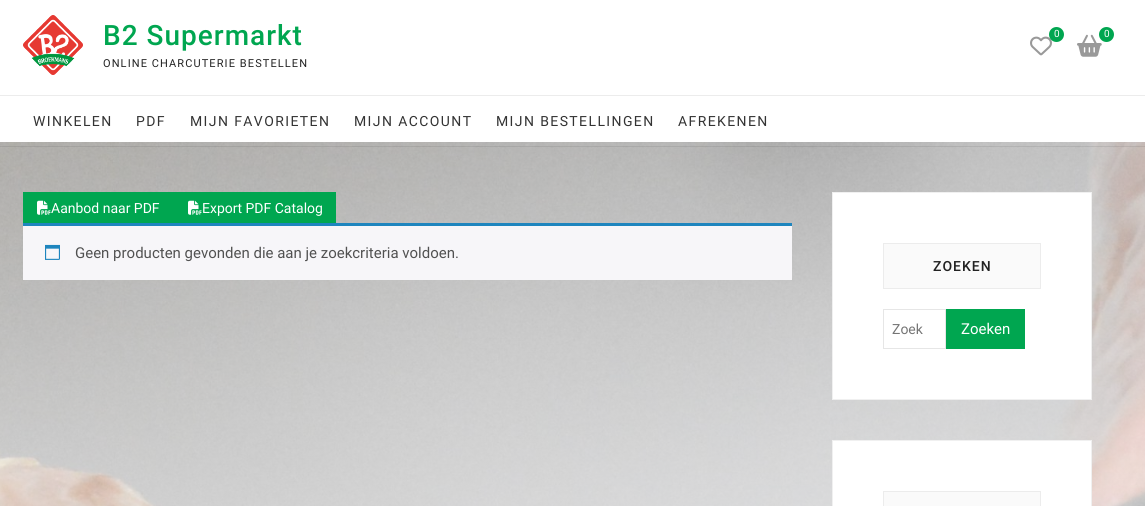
import math
import cairo


def write_spaced(ctx, x, y, s, letter, word):
	ctx.move_to(x, y)
	for ch in s:
		ctx.show_text(ch)
		ctx.rel_move_to(letter + word * (ch == ' '), 0)

def paste(ctx, path, x, y, w, h):
	ctx.save()
	ctx.set_source_surface(cairo.ImageSurface.create_from_png(path), x, y)
	ctx.rectangle(x, y, w, h)
	ctx.fill()
	ctx.restore()

def draw(ctx):
	ctx.set_source_rgb(1, 1, 1)
	ctx.paint()
	paste(ctx, 'media/1.png', 23, 15, 60, 60)
	ctx.select_font_face('Roboto Medium')
	ctx.set_font_size(28)
	ctx.set_source_rgb(0, 0.651, 0.314)
	write_spaced(ctx, 103, 45, 'B2 Supermarkt', 1, 0)
	ctx.select_font_face('Roboto')
	ctx.set_font_size(11)
	ctx.set_source_rgb(0.133, 0.133, 0.133)
	write_spaced(ctx, 103, 67, 'ONLINE CHARCUTERIE BESTELLEN', 1.1, 0)
	paste(ctx, 'media/2.png', 1030, 36, 22, 20)
	ctx.set_source_rgb(0, 0.651, 0.314)
	ctx.arc(1056.5, 34.5, 7.5, 0, 2 * math.pi)
	ctx.fill()
	ctx.set_font_size(10)
	ctx.set_source_rgb(1, 1, 1)
	ctx.move_to(1054, 37)
	ctx.show_text('0')
	paste(ctx, 'media/3.png', 1077, 34, 25, 23)
	ctx.set_source_rgb(0, 0.651, 0.314)
	ctx.arc(1106.5, 34.5, 7.5, 0, 2 * math.pi)
	ctx.fill()
	ctx.set_source_rgb(1, 1, 1)
	ctx.move_to(1104, 37)
	ctx.show_text('0')
	ctx.set_source_rgb(0.922, 0.922, 0.922)
	ctx.rectangle(0, 95, 1145, 1)
	ctx.fill()
	paste(ctx, 'media/4.png', 0, 142, 1145, 364)
	ctx.set_source_rgba(0, 0, 0, 0.08)
	ctx.rectangle(0, 146, 1145, 1)
	ctx.fill()
	ctx.set_font_size(14)
	ctx.set_source_rgb(0.2, 0.2, 0.2)
	for x, y, s in [
		(33, 126, 'WINKELEN'),
		(136, 126, 'PDF'),
		(190, 126, 'MIJN FAVORIETEN'),
		(354, 126, 'MIJN ACCOUNT'),
		(496, 126, 'MIJN BESTELLINGEN'),
		(678, 126, 'AFREKENEN'),
	]:
		write_spaced(ctx, x, y, s, 1.4, 0)
	ctx.set_source_rgb(0, 0.651, 0.314)
	ctx.rectangle(23, 192, 313, 31)
	ctx.fill()
	paste(ctx, 'media/5.png', 37, 200, 14, 15)
	ctx.set_source_rgb(1, 1, 1)
	ctx.move_to(51, 213)
	ctx.show_text('Aanbod naar PDF')
	paste(ctx, 'media/5.png', 188, 200, 14, 15)
	ctx.move_to(202, 213)
	ctx.show_text('Export PDF Catalog')
	ctx.set_source_rgb(0.965, 0.961, 0.973)
	ctx.rectangle(23, 226, 769, 54)
	ctx.fill()
	ctx.set_source_rgb(0.118, 0.522, 0.745)
	ctx.rectangle(23, 223, 769, 3)
	ctx.fill()
	paste(ctx, 'media/6.png', 45, 244, 15, 16)
	ctx.set_font_size(15)
	ctx.set_source_rgb(0.318, 0.318, 0.318)
	ctx.move_to(75, 258)
	ctx.show_text('Geen producten gevonden die aan je zoekcriteria voldoen.')
	ctx.set_source_rgb(1, 1, 1)
	ctx.rectangle(832.5, 192.5, 259, 207)
	ctx.fill_preserve()
	ctx.set_source_rgb(0.941, 0.941, 0.941)
	ctx.set_line_width(1)
	ctx.stroke()
	ctx.set_source_rgb(0.98, 0.98, 0.98)
	ctx.rectangle(883.5, 243.5, 157, 45)
	ctx.fill_preserve()
	ctx.set_source_rgb(0.922, 0.922, 0.922)
	ctx.stroke()
	ctx.select_font_face('Roboto Medium')
	ctx.set_font_size(14)
	ctx.set_source_rgb(0.133, 0.133, 0.133)
	write_spaced(ctx, 933, 271, 'ZOEKEN', 1, 0)
	ctx.rectangle(883.5, 309.5, 62, 39)
	ctx.set_source_rgb(0.902, 0.902, 0.902)
	ctx.stroke()
	ctx.select_font_face('Roboto')
	ctx.set_source_rgb(0.459, 0.459, 0.459)
	ctx.move_to(892, 334)
	ctx.show_text('Zoek')
	ctx.set_source_rgb(0, 0.651, 0.314)
	ctx.rectangle(946, 309, 79, 40)
	ctx.fill()
	ctx.set_font_size(15)
	ctx.set_source_rgb(1, 1, 1)
	ctx.move_to(961, 334)
	ctx.show_text('Zoeken')
	ctx.rectangle(832.5, 440.5, 259, 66)
	ctx.fill_preserve()
	ctx.set_source_rgb(0.941, 0.941, 0.941)
	ctx.stroke()
	ctx.set_source_rgb(0.98, 0.98, 0.98)
	ctx.rectangle(883.5, 491.5, 157, 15)
	ctx.fill_preserve()
	ctx.set_source_rgb(0.922, 0.922, 0.922)
	ctx.stroke()


surface = cairo.ImageSurface(cairo.FORMAT_RGB24, 1145, 506)
ctx = cairo.Context(surface)
options = cairo.FontOptions()
options.set_hint_metrics(cairo.HINT_METRICS_OFF)
options.set_hint_style(cairo.HINT_STYLE_NONE)
ctx.set_font_options(options)
ctx.set_miter_limit(4)
draw(ctx)
surface.write_to_png('image.png')
